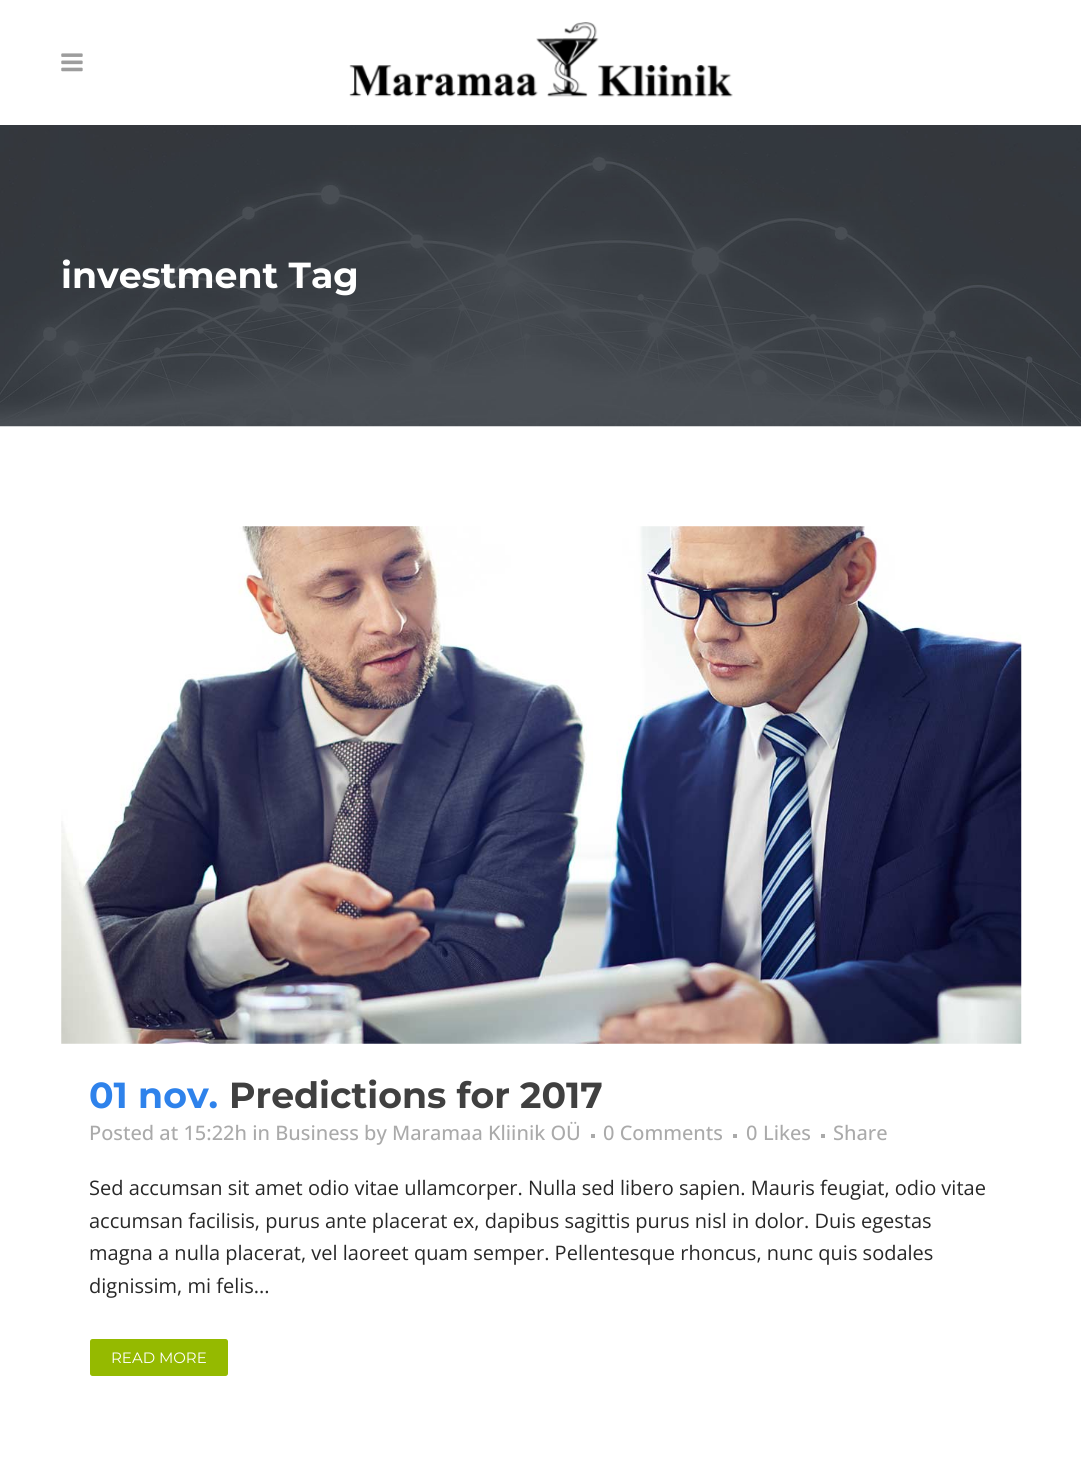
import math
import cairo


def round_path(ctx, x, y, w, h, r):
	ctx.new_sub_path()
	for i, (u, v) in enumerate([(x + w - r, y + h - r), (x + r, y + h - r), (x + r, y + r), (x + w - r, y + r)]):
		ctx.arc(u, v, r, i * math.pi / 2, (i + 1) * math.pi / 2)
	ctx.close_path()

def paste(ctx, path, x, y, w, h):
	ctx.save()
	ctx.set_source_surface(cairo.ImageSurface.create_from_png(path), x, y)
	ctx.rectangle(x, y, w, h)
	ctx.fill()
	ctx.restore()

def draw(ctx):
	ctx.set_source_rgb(1, 1, 1)
	ctx.paint()
	paste(ctx, 'media/1.png', 61, 53, 22, 19)
	paste(ctx, 'media/2.png', 349, 22, 384, 75)
	paste(ctx, 'media/3.png', 0, 125, 1081, 302)
	ctx.select_font_face('Montserrat', cairo.FONT_SLANT_NORMAL, cairo.FONT_WEIGHT_BOLD)
	ctx.set_font_size(36.25)
	ctx.set_source_rgb(1, 1, 1)
	ctx.move_to(61, 288)
	ctx.show_text('investment Tag')
	paste(ctx, 'media/4.png', 61, 526, 961, 518)
	ctx.set_source_rgb(0.18, 0.51, 0.918)
	ctx.move_to(89, 1108)
	ctx.show_text('01 nov.')
	ctx.set_source_rgb(0.251, 0.251, 0.251)
	ctx.move_to(229, 1108)
	ctx.show_text('Predictions for 2017')
	ctx.select_font_face('Open Sans Medium')
	ctx.set_font_size(20)
	ctx.set_source_rgb(0.667, 0.667, 0.667)
	ctx.move_to(89, 1140)
	ctx.show_text('Posted at 15:22h in Business by Maramaa Kliinik OÜ')
	ctx.rectangle(591, 1134, 4, 4)
	ctx.fill()
	ctx.move_to(603, 1140)
	ctx.show_text('0 Comments')
	ctx.rectangle(733, 1134, 4, 4)
	ctx.fill()
	ctx.move_to(746, 1140)
	ctx.show_text('0')
	ctx.move_to(763, 1140)
	ctx.show_text('Likes')
	ctx.rectangle(821, 1134, 4, 4)
	ctx.fill()
	ctx.move_to(833, 1140)
	ctx.show_text('Share')
	ctx.select_font_face('Open Sans')
	ctx.set_source_rgb(0.157, 0.157, 0.157)
	for x, y, s in [
		(89, 1195, 'Sed accumsan sit amet odio vitae ullamcorper. Nulla sed libero sapien. Mauris feugiat, odio vitae'),
		(89, 1228, 'accumsan facilisis, purus ante placerat ex, dapibus sagittis purus nisl in dolor. Duis egestas'),
		(89, 1260, 'magna a nulla placerat, vel laoreet quam semper. Pellentesque rhoncus, nunc quis sodales'),
		(89, 1293, 'dignissim, mi felis...'),
	]:
		ctx.move_to(x, y)
		ctx.show_text(s)
	ctx.set_source_rgb(0.584, 0.729, 0)
	round_path(ctx, 90, 1339, 138, 37, 2.5)
	ctx.fill()
	ctx.select_font_face('Montserrat')
	ctx.set_font_size(15)
	ctx.set_source_rgb(1, 1, 1)
	ctx.move_to(111, 1363)
	ctx.show_text('READ MORE')


surface = cairo.ImageSurface(cairo.FORMAT_RGB24, 1081, 1479)
ctx = cairo.Context(surface)
options = cairo.FontOptions()
options.set_hint_metrics(cairo.HINT_METRICS_OFF)
options.set_hint_style(cairo.HINT_STYLE_NONE)
ctx.set_font_options(options)
ctx.set_miter_limit(4)
draw(ctx)
surface.write_to_png('image.png')
